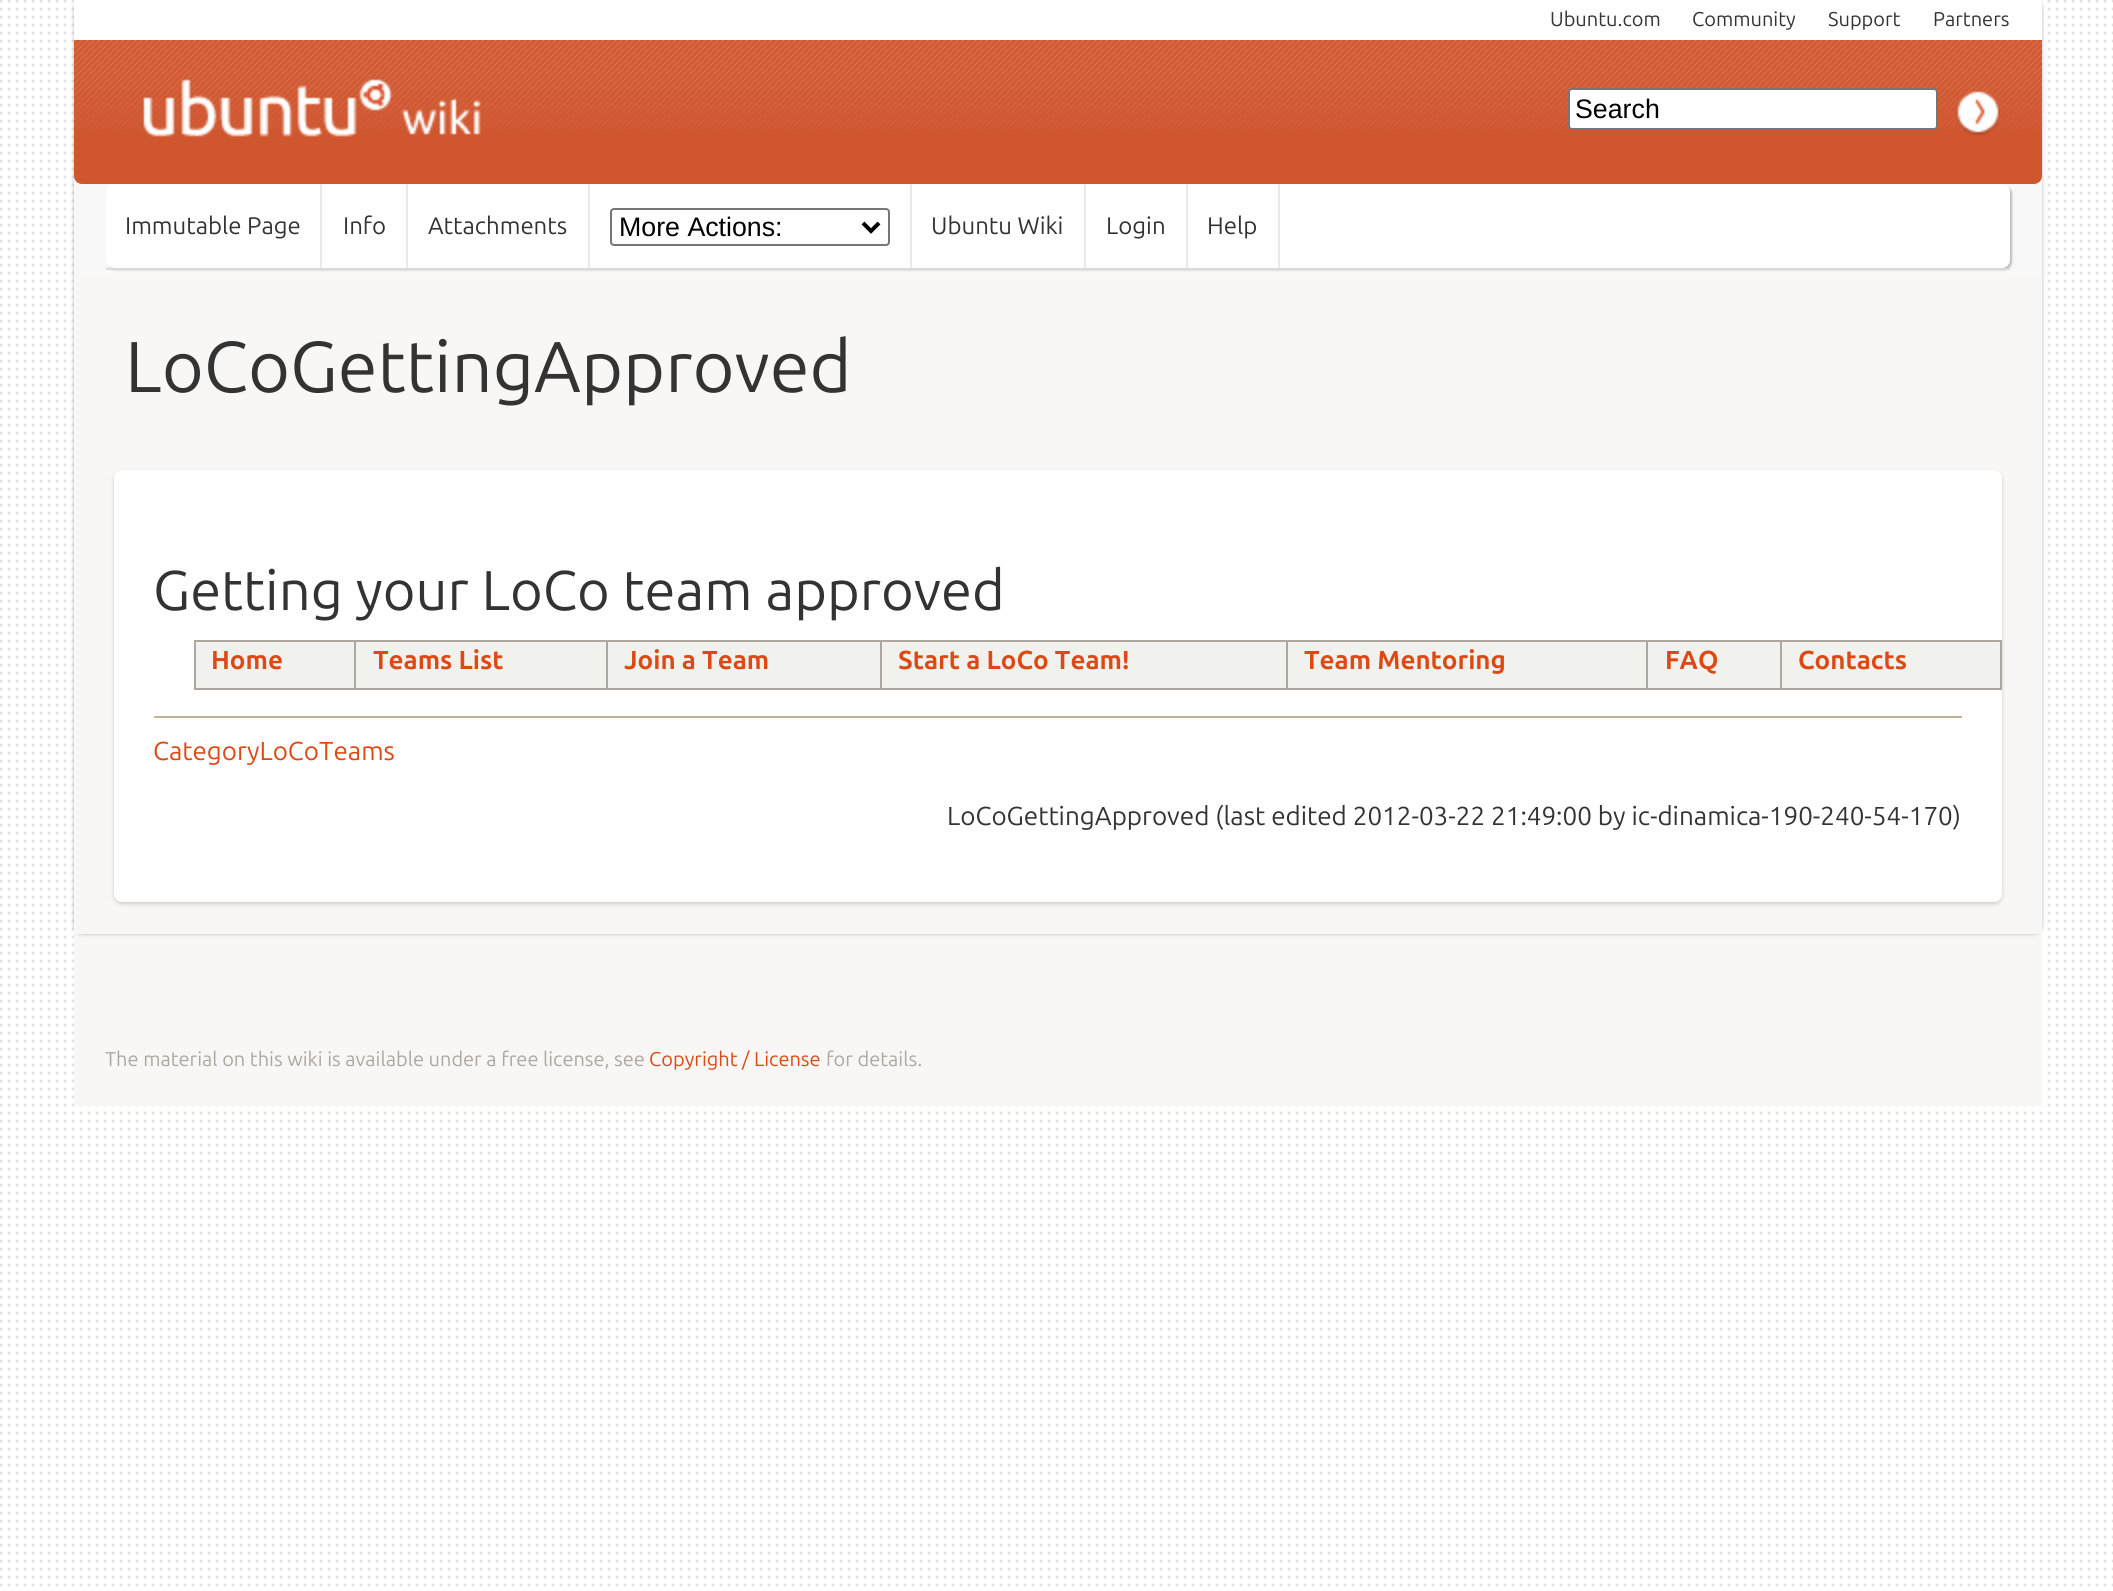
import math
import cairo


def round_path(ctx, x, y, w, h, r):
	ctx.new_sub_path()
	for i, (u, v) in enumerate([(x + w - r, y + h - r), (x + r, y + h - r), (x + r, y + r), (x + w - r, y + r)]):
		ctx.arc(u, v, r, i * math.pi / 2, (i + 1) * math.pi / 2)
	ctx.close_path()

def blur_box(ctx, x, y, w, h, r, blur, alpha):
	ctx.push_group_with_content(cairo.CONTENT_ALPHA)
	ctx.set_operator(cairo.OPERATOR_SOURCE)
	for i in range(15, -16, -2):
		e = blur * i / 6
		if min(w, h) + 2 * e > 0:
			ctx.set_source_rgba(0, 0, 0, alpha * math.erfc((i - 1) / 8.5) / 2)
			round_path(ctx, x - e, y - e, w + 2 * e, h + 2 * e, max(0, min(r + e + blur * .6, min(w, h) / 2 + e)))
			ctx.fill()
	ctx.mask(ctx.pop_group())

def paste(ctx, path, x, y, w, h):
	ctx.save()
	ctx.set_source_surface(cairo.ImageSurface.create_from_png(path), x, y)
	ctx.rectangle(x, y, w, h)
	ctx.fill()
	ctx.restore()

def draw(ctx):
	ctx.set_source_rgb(1, 1, 1)
	ctx.paint()
	paste(ctx, 'media/1.png', 0, 0, 2113, 1587)
	ctx.set_source_rgb(0.969, 0.965, 0.961)
	ctx.rectangle(74, 934, 1968, 172)
	ctx.fill()
	ctx.set_source_rgb(0.733, 0.733, 0.733)
	blur_box(ctx, 74, 0, 1968, 934, 8, 2, 1)
	ctx.set_source_rgb(0.969, 0.969, 0.969)
	ctx.rectangle(74, 184, 1968, 94)
	ctx.fill()
	ctx.set_source_rgb(1, 1, 1)
	ctx.rectangle(74, 0, 1968, 184)
	ctx.fill()
	ctx.select_font_face('Ubuntu')
	ctx.set_font_size(20)
	ctx.set_source_rgb(0.2, 0.2, 0.2)
	for x, y, s in [
		(1550, 26, 'Ubuntu.com'),
		(1692, 26, 'Community'),
		(1828, 26, 'Support'),
		(1933, 26, 'Partners'),
	]:
		ctx.move_to(x, y)
		ctx.show_text(s)
	ctx.set_source_rgb(0.816, 0.337, 0.188)
	ctx.new_path()
	ctx.move_to(74, 40)
	ctx.line_to(2042, 40)
	ctx.line_to(2042, 176)
	ctx.curve_to(2042, 180.5, 2038.5, 184, 2034, 184)
	ctx.line_to(82, 184)
	ctx.curve_to(77.5, 184, 74, 180.5, 74, 176)
	ctx.close_path()
	ctx.fill()
	paste(ctx, 'media/2.png', 74, 40, 1968, 90)
	paste(ctx, 'media/3.png', 143, 79, 338, 58)
	ctx.set_source_rgb(1, 1, 1)
	round_path(ctx, 1569, 89, 368, 40, 3)
	ctx.fill_preserve()
	ctx.set_source_rgb(0.463, 0.463, 0.463)
	ctx.stroke()
	ctx.select_font_face('Liberation Sans')
	ctx.set_font_size(26.75)
	ctx.set_source_rgb(0, 0, 0)
	ctx.move_to(1575, 118)
	ctx.show_text('Search')
	paste(ctx, 'media/4.png', 1956, 91, 44, 45)
	ctx.set_source_rgb(0.733, 0.733, 0.733)
	blur_box(ctx, 108, 186, 1904, 84, 8, 1, 1)
	ctx.set_source_rgb(1, 1, 1)
	round_path(ctx, 106, 184, 1904, 84, 8)
	ctx.fill()
	ctx.set_source_rgb(0.914, 0.914, 0.914)
	ctx.rectangle(320, 184, 2, 84)
	ctx.fill()
	ctx.select_font_face('Ubuntu')
	ctx.set_font_size(24)
	ctx.set_source_rgb(0.2, 0.2, 0.2)
	ctx.move_to(125, 234)
	ctx.show_text('Immutable Page')
	ctx.set_source_rgb(0.914, 0.914, 0.914)
	ctx.rectangle(406, 184, 2, 84)
	ctx.fill()
	ctx.set_source_rgb(0.2, 0.2, 0.2)
	ctx.move_to(343, 234)
	ctx.show_text('Info')
	ctx.set_source_rgb(0.914, 0.914, 0.914)
	ctx.rectangle(588, 184, 2, 84)
	ctx.fill()
	ctx.set_source_rgb(0.2, 0.2, 0.2)
	ctx.move_to(428, 234)
	ctx.show_text('Attachments')
	ctx.set_source_rgb(0.914, 0.914, 0.914)
	ctx.rectangle(910, 184, 2, 84)
	ctx.fill()
	round_path(ctx, 611, 209, 278, 36, 3)
	ctx.set_source_rgb(0.463, 0.463, 0.463)
	ctx.stroke()
	ctx.new_path()
	ctx.move_to(863, 223)
	ctx.line_to(871, 231)
	ctx.line_to(879, 223)
	ctx.set_source_rgb(0, 0, 0)
	ctx.set_line_width(4)
	ctx.stroke()
	ctx.select_font_face('Liberation Sans')
	ctx.set_font_size(26.75)
	ctx.move_to(619, 236)
	ctx.show_text('More Actions:')
	ctx.set_source_rgb(0.914, 0.914, 0.914)
	ctx.rectangle(1084, 184, 2, 84)
	ctx.fill()
	ctx.select_font_face('Ubuntu')
	ctx.set_font_size(24)
	ctx.set_source_rgb(0.2, 0.2, 0.2)
	ctx.move_to(931, 234)
	ctx.show_text('Ubuntu Wiki')
	ctx.set_source_rgb(0.914, 0.914, 0.914)
	ctx.rectangle(1186, 184, 2, 84)
	ctx.fill()
	ctx.set_source_rgb(0.2, 0.2, 0.2)
	ctx.move_to(1106, 234)
	ctx.show_text('Login')
	ctx.set_source_rgb(0.914, 0.914, 0.914)
	ctx.rectangle(1278, 184, 2, 84)
	ctx.fill()
	ctx.set_source_rgb(0.2, 0.2, 0.2)
	ctx.move_to(1207, 234)
	ctx.show_text('Help')
	ctx.set_source_rgb(0.851, 0.851, 0.851)
	ctx.rectangle(106, 268, 1904, 2)
	ctx.fill()
	ctx.set_source_rgb(0.969, 0.965, 0.961)
	ctx.rectangle(74, 278, 1968, 656)
	ctx.fill()
	ctx.set_font_size(72)
	ctx.set_source_rgb(0.2, 0.2, 0.2)
	ctx.move_to(125, 392)
	ctx.show_text('LoCoGettingApproved')
	ctx.set_source_rgb(0.8, 0.8, 0.8)
	blur_box(ctx, 114, 472, 1888, 432, 8, 2, 1)
	ctx.set_source_rgb(1, 1, 1)
	round_path(ctx, 114, 470, 1888, 432, 8)
	ctx.fill()
	ctx.set_font_size(56)
	ctx.set_source_rgb(0.2, 0.2, 0.2)
	ctx.move_to(153, 610)
	ctx.show_text('Getting your LoCo team approved')
	ctx.set_source_rgb(0.945, 0.945, 0.929)
	round_path(ctx, 194, 640, 1808, 50, 8)
	ctx.fill()
	ctx.set_source_rgb(0.682, 0.655, 0.624)
	ctx.rectangle(1780, 640, 222, 2)
	ctx.rectangle(2000, 640, 2, 50)
	ctx.rectangle(1780, 688, 222, 2)
	ctx.rectangle(1780, 640, 2, 50)
	ctx.rectangle(1646, 640, 136, 2)
	ctx.rectangle(1646, 688, 136, 2)
	ctx.rectangle(1646, 640, 2, 50)
	ctx.rectangle(1286, 640, 362, 2)
	ctx.rectangle(1286, 688, 362, 2)
	ctx.rectangle(1286, 640, 2, 50)
	ctx.rectangle(880, 640, 408, 2)
	ctx.rectangle(880, 688, 408, 2)
	ctx.rectangle(880, 640, 2, 50)
	ctx.rectangle(606, 640, 276, 2)
	ctx.rectangle(606, 688, 276, 2)
	ctx.rectangle(606, 640, 2, 50)
	ctx.rectangle(354, 640, 254, 2)
	ctx.rectangle(354, 688, 254, 2)
	ctx.rectangle(354, 640, 2, 50)
	ctx.rectangle(194, 640, 162, 2)
	ctx.rectangle(194, 688, 162, 2)
	ctx.rectangle(194, 640, 2, 50)
	ctx.fill()
	ctx.select_font_face('Ubuntu', cairo.FONT_SLANT_NORMAL, cairo.FONT_WEIGHT_BOLD)
	ctx.set_font_size(26)
	ctx.set_source_rgb(0.867, 0.282, 0.078)
	for x, y, s in [
		(211, 669, 'Home'),
		(373, 669, 'Teams List'),
		(624, 669, 'Join a Team'),
		(898, 669, 'Start a LoCo Team!'),
		(1304, 669, 'Team Mentoring'),
		(1665, 669, 'FAQ'),
		(1798, 669, 'Contacts'),
	]:
		ctx.move_to(x, y)
		ctx.show_text(s)
	ctx.set_source_rgb(0.757, 0.706, 0.588)
	ctx.rectangle(154, 716, 1808, 2)
	ctx.fill()
	ctx.select_font_face('Ubuntu')
	ctx.set_source_rgb(0.867, 0.282, 0.078)
	ctx.move_to(153, 760)
	ctx.show_text('CategoryLoCoTeams')
	ctx.set_source_rgb(0.2, 0.2, 0.2)
	ctx.move_to(947, 825)
	ctx.show_text('LoCoGettingApproved (last edited 2012-03-22 21:49:00 by ic-dinamica-190-240-54-170)')
	ctx.set_font_size(20)
	ctx.set_source_rgb(0.682, 0.655, 0.624)
	ctx.move_to(105, 1066)
	ctx.show_text('The material on this wiki is available under a free license, see')
	ctx.set_source_rgb(0.867, 0.282, 0.078)
	ctx.move_to(649, 1066)
	ctx.show_text('Copyright / License')
	ctx.set_source_rgb(0.682, 0.655, 0.624)
	ctx.move_to(826, 1066)
	ctx.show_text('for details.')


surface = cairo.ImageSurface(cairo.FORMAT_RGB24, 2113, 1591)
ctx = cairo.Context(surface)
options = cairo.FontOptions()
options.set_hint_metrics(cairo.HINT_METRICS_OFF)
options.set_hint_style(cairo.HINT_STYLE_NONE)
ctx.set_font_options(options)
ctx.set_miter_limit(4)
draw(ctx)
surface.write_to_png('image.png')
